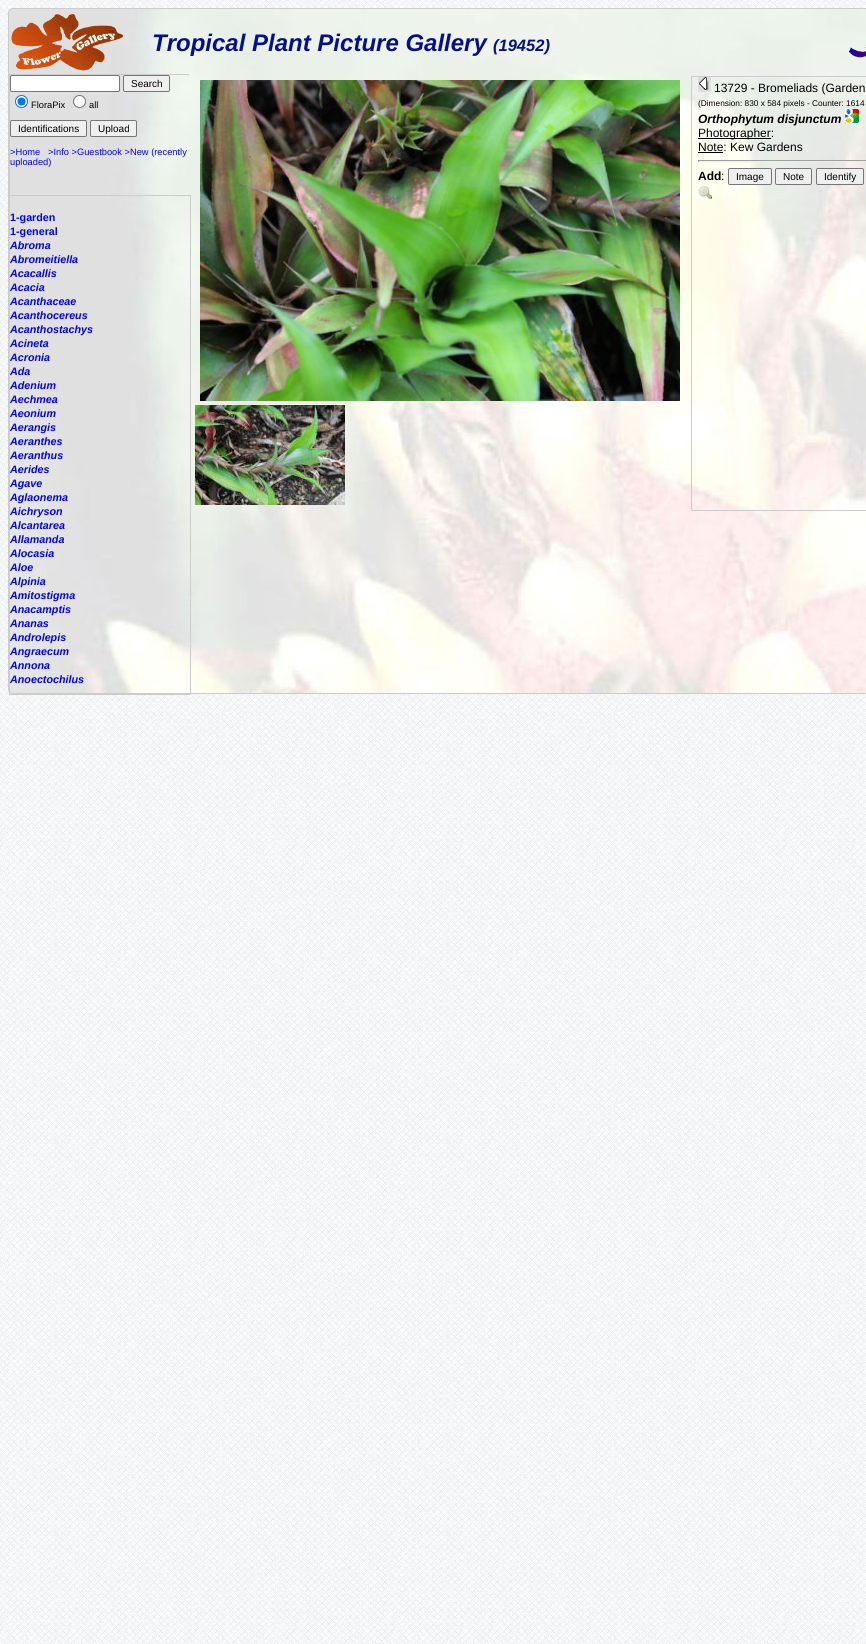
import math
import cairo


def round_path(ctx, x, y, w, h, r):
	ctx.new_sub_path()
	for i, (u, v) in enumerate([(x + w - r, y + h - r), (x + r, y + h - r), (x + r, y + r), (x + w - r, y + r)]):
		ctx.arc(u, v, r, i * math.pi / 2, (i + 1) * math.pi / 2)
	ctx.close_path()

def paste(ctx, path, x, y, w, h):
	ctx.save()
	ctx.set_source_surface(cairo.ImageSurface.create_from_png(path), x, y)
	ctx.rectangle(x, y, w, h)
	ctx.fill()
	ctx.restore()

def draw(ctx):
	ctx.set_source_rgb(1, 1, 1)
	ctx.paint()
	paste(ctx, 'media/1.png', 0, 0, 866, 1644)
	paste(ctx, 'media/2.png', 8, 8, 858, 686)
	round_path(ctx, 8.5, 8.5, 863, 685, 4.5)
	ctx.set_source_rgb(0.8, 0.8, 0.8)
	ctx.set_line_width(1)
	ctx.stroke()
	paste(ctx, 'media/3.png', 11, 14, 113, 57)
	ctx.select_font_face('Liberation Sans', cairo.FONT_SLANT_ITALIC, cairo.FONT_WEIGHT_BOLD)
	ctx.set_font_size(24)
	ctx.set_source_rgb(0.016, 0.067, 0.533)
	ctx.move_to(152, 51)
	ctx.show_text('Tropical Plant Picture Gallery')
	ctx.set_font_size(16.5)
	ctx.move_to(493, 51)
	ctx.show_text('(19452)')
	paste(ctx, 'media/4.png', 848, 46, 18, 12)
	ctx.save()
	ctx.rectangle(9, 74, 180, 619)
	ctx.clip()
	ctx.rectangle(9.5, 74.5, 181, 121)
	ctx.set_source_rgb(0.8, 0.8, 0.8)
	ctx.stroke()
	ctx.restore()
	ctx.set_source_rgb(1, 1, 1)
	round_path(ctx, 10.5, 75.5, 109, 16, 1.5)
	ctx.fill_preserve()
	ctx.set_source_rgb(0.463, 0.463, 0.463)
	ctx.stroke()
	ctx.set_source_rgb(0.937, 0.937, 0.937)
	round_path(ctx, 123.5, 75.5, 46, 16, 1.5)
	ctx.fill_preserve()
	ctx.set_source_rgb(0.463, 0.463, 0.463)
	ctx.stroke()
	ctx.select_font_face('Liberation Sans')
	ctx.set_font_size(10)
	ctx.set_source_rgb(0, 0, 0)
	ctx.move_to(131, 87)
	ctx.show_text('Search')
	ctx.set_source_rgb(1, 1, 1)
	ctx.new_path()
	ctx.arc(21.5, 101.5, 6, 0, 2 * math.pi)
	ctx.fill_preserve()
	ctx.set_source_rgb(0, 0.459, 1)
	ctx.stroke()
	ctx.arc(21.5, 101.5, 4, 0, 2 * math.pi)
	ctx.fill()
	ctx.set_font_size(9.3)
	ctx.set_source_rgb(0, 0, 0)
	ctx.move_to(31, 108)
	ctx.show_text('FloraPix')
	ctx.set_source_rgb(1, 1, 1)
	ctx.new_path()
	ctx.arc(79.5, 101.5, 6, 0, 2 * math.pi)
	ctx.fill_preserve()
	ctx.set_source_rgb(0.463, 0.463, 0.463)
	ctx.stroke()
	ctx.set_source_rgb(0, 0, 0)
	ctx.move_to(89, 108)
	ctx.show_text('all')
	ctx.set_source_rgb(0.937, 0.937, 0.937)
	round_path(ctx, 10.5, 120.5, 76, 16, 1.5)
	ctx.fill_preserve()
	ctx.set_source_rgb(0.463, 0.463, 0.463)
	ctx.stroke()
	ctx.set_font_size(10)
	ctx.set_source_rgb(0, 0, 0)
	ctx.move_to(18, 132)
	ctx.show_text('Identifications')
	ctx.set_source_rgb(0.937, 0.937, 0.937)
	round_path(ctx, 90.5, 120.5, 46, 16, 1.5)
	ctx.fill_preserve()
	ctx.set_source_rgb(0.463, 0.463, 0.463)
	ctx.stroke()
	ctx.set_source_rgb(0, 0, 0)
	ctx.move_to(98, 132)
	ctx.show_text('Upload')
	ctx.set_font_size(9.3)
	ctx.set_source_rgb(0, 0, 1)
	for x, y, s in [
		(10, 155, '>Home'),
		(48, 155, '>Info >Guestbook >New (recently'),
		(10, 165, 'uploaded)'),
	]:
		ctx.move_to(x, y)
		ctx.show_text(s)
	ctx.rectangle(9.5, 195.5, 181, 499)
	ctx.set_source_rgb(0.8, 0.8, 0.8)
	ctx.stroke()
	ctx.select_font_face('Liberation Sans', cairo.FONT_SLANT_NORMAL, cairo.FONT_WEIGHT_BOLD)
	ctx.set_font_size(10.75)
	ctx.set_source_rgb(0, 0, 1)
	ctx.move_to(10, 221)
	ctx.show_text('1-garden')
	ctx.move_to(10, 235)
	ctx.show_text('1-general')
	ctx.select_font_face('Liberation Sans', cairo.FONT_SLANT_ITALIC, cairo.FONT_WEIGHT_BOLD)
	for x, y, s in [
		(10, 249, 'Abroma'),
		(10, 263, 'Abromeitiella'),
		(10, 277, 'Acacallis'),
		(10, 291, 'Acacia'),
		(10, 305, 'Acanthaceae'),
		(10, 319, 'Acanthocereus'),
		(10, 333, 'Acanthostachys'),
		(10, 347, 'Acineta'),
		(10, 361, 'Acronia'),
		(10, 375, 'Ada'),
		(10, 389, 'Adenium'),
		(10, 403, 'Aechmea'),
		(10, 417, 'Aeonium'),
		(10, 431, 'Aerangis'),
		(10, 445, 'Aeranthes'),
		(10, 459, 'Aeranthus'),
		(10, 473, 'Aerides'),
		(10, 487, 'Agave'),
		(10, 501, 'Aglaonema'),
		(10, 515, 'Aichryson'),
		(10, 529, 'Alcantarea'),
		(10, 543, 'Allamanda'),
		(10, 557, 'Alocasia'),
		(10, 571, 'Aloe'),
		(10, 585, 'Alpinia'),
		(10, 599, 'Amitostigma'),
		(10, 613, 'Anacamptis'),
		(10, 627, 'Ananas'),
		(10, 641, 'Androlepis'),
		(10, 655, 'Angraecum'),
		(10, 669, 'Annona'),
		(10, 683, 'Anoectochilus'),
	]:
		ctx.move_to(x, y)
		ctx.show_text(s)
	paste(ctx, 'media/5.png', 200, 80, 480, 321)
	paste(ctx, 'media/6.png', 195, 405, 150, 100)
	ctx.rectangle(691.5, 76.5, 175, 434)
	ctx.set_source_rgb(0.8, 0.8, 0.8)
	ctx.stroke()
	paste(ctx, 'media/7.png', 698, 77, 13, 15)
	ctx.select_font_face('Liberation Sans')
	ctx.set_font_size(12)
	ctx.set_source_rgb(0, 0, 0)
	ctx.move_to(714, 92)
	ctx.show_text('13729 - Bromeliads (Garden')
	ctx.set_font_size(8.3)
	ctx.move_to(698, 106)
	ctx.show_text('(Dimension: 830 x 584 pixels - Counter: 1614')
	ctx.select_font_face('Liberation Sans', cairo.FONT_SLANT_ITALIC, cairo.FONT_WEIGHT_BOLD)
	ctx.set_font_size(12)
	ctx.move_to(698, 123)
	ctx.show_text('Orthophytum disjunctum')
	paste(ctx, 'media/8.png', 845, 109, 14, 14)
	ctx.rectangle(698, 138, 73, 1)
	ctx.fill()
	ctx.select_font_face('Liberation Sans')
	ctx.move_to(698, 137)
	ctx.show_text('Photographer:')
	ctx.move_to(698, 151)
	ctx.show_text('Note: Kew Gardens')
	ctx.rectangle(698, 152, 25, 1)
	ctx.fill()
	ctx.set_source_rgb(0.624, 0.624, 0.624)
	ctx.rectangle(698, 160, 168, 1)
	ctx.fill()
	ctx.set_source_rgb(0.933, 0.933, 0.933)
	ctx.rectangle(698, 161, 168, 1)
	ctx.fill()
	ctx.set_source_rgb(0.624, 0.624, 0.624)
	ctx.rectangle(698, 160, 1, 2)
	ctx.fill()
	ctx.select_font_face('Liberation Sans', cairo.FONT_SLANT_NORMAL, cairo.FONT_WEIGHT_BOLD)
	ctx.set_source_rgb(0, 0, 0)
	ctx.move_to(698, 180)
	ctx.show_text('Add')
	ctx.select_font_face('Liberation Sans')
	ctx.move_to(721, 180)
	ctx.show_text(':')
	ctx.set_source_rgb(0.937, 0.937, 0.937)
	round_path(ctx, 728.5, 168.5, 43, 16, 1.5)
	ctx.fill_preserve()
	ctx.set_source_rgb(0.463, 0.463, 0.463)
	ctx.stroke()
	ctx.set_font_size(10)
	ctx.set_source_rgb(0, 0, 0)
	ctx.move_to(736, 180)
	ctx.show_text('Image')
	ctx.set_source_rgb(0.937, 0.937, 0.937)
	round_path(ctx, 775.5, 168.5, 36, 16, 1.5)
	ctx.fill_preserve()
	ctx.set_source_rgb(0.463, 0.463, 0.463)
	ctx.stroke()
	ctx.set_source_rgb(0, 0, 0)
	ctx.move_to(783, 180)
	ctx.show_text('Note')
	ctx.set_source_rgb(0.937, 0.937, 0.937)
	round_path(ctx, 816.5, 168.5, 47, 16, 1.5)
	ctx.fill_preserve()
	ctx.set_source_rgb(0.463, 0.463, 0.463)
	ctx.stroke()
	ctx.set_source_rgb(0, 0, 0)
	ctx.move_to(824, 180)
	ctx.show_text('Identify')
	paste(ctx, 'media/9.png', 698, 185, 14, 14)


surface = cairo.ImageSurface(cairo.FORMAT_RGB24, 866, 1644)
ctx = cairo.Context(surface)
options = cairo.FontOptions()
options.set_hint_metrics(cairo.HINT_METRICS_OFF)
options.set_hint_style(cairo.HINT_STYLE_NONE)
ctx.set_font_options(options)
ctx.set_miter_limit(4)
draw(ctx)
surface.write_to_png('image.png')
